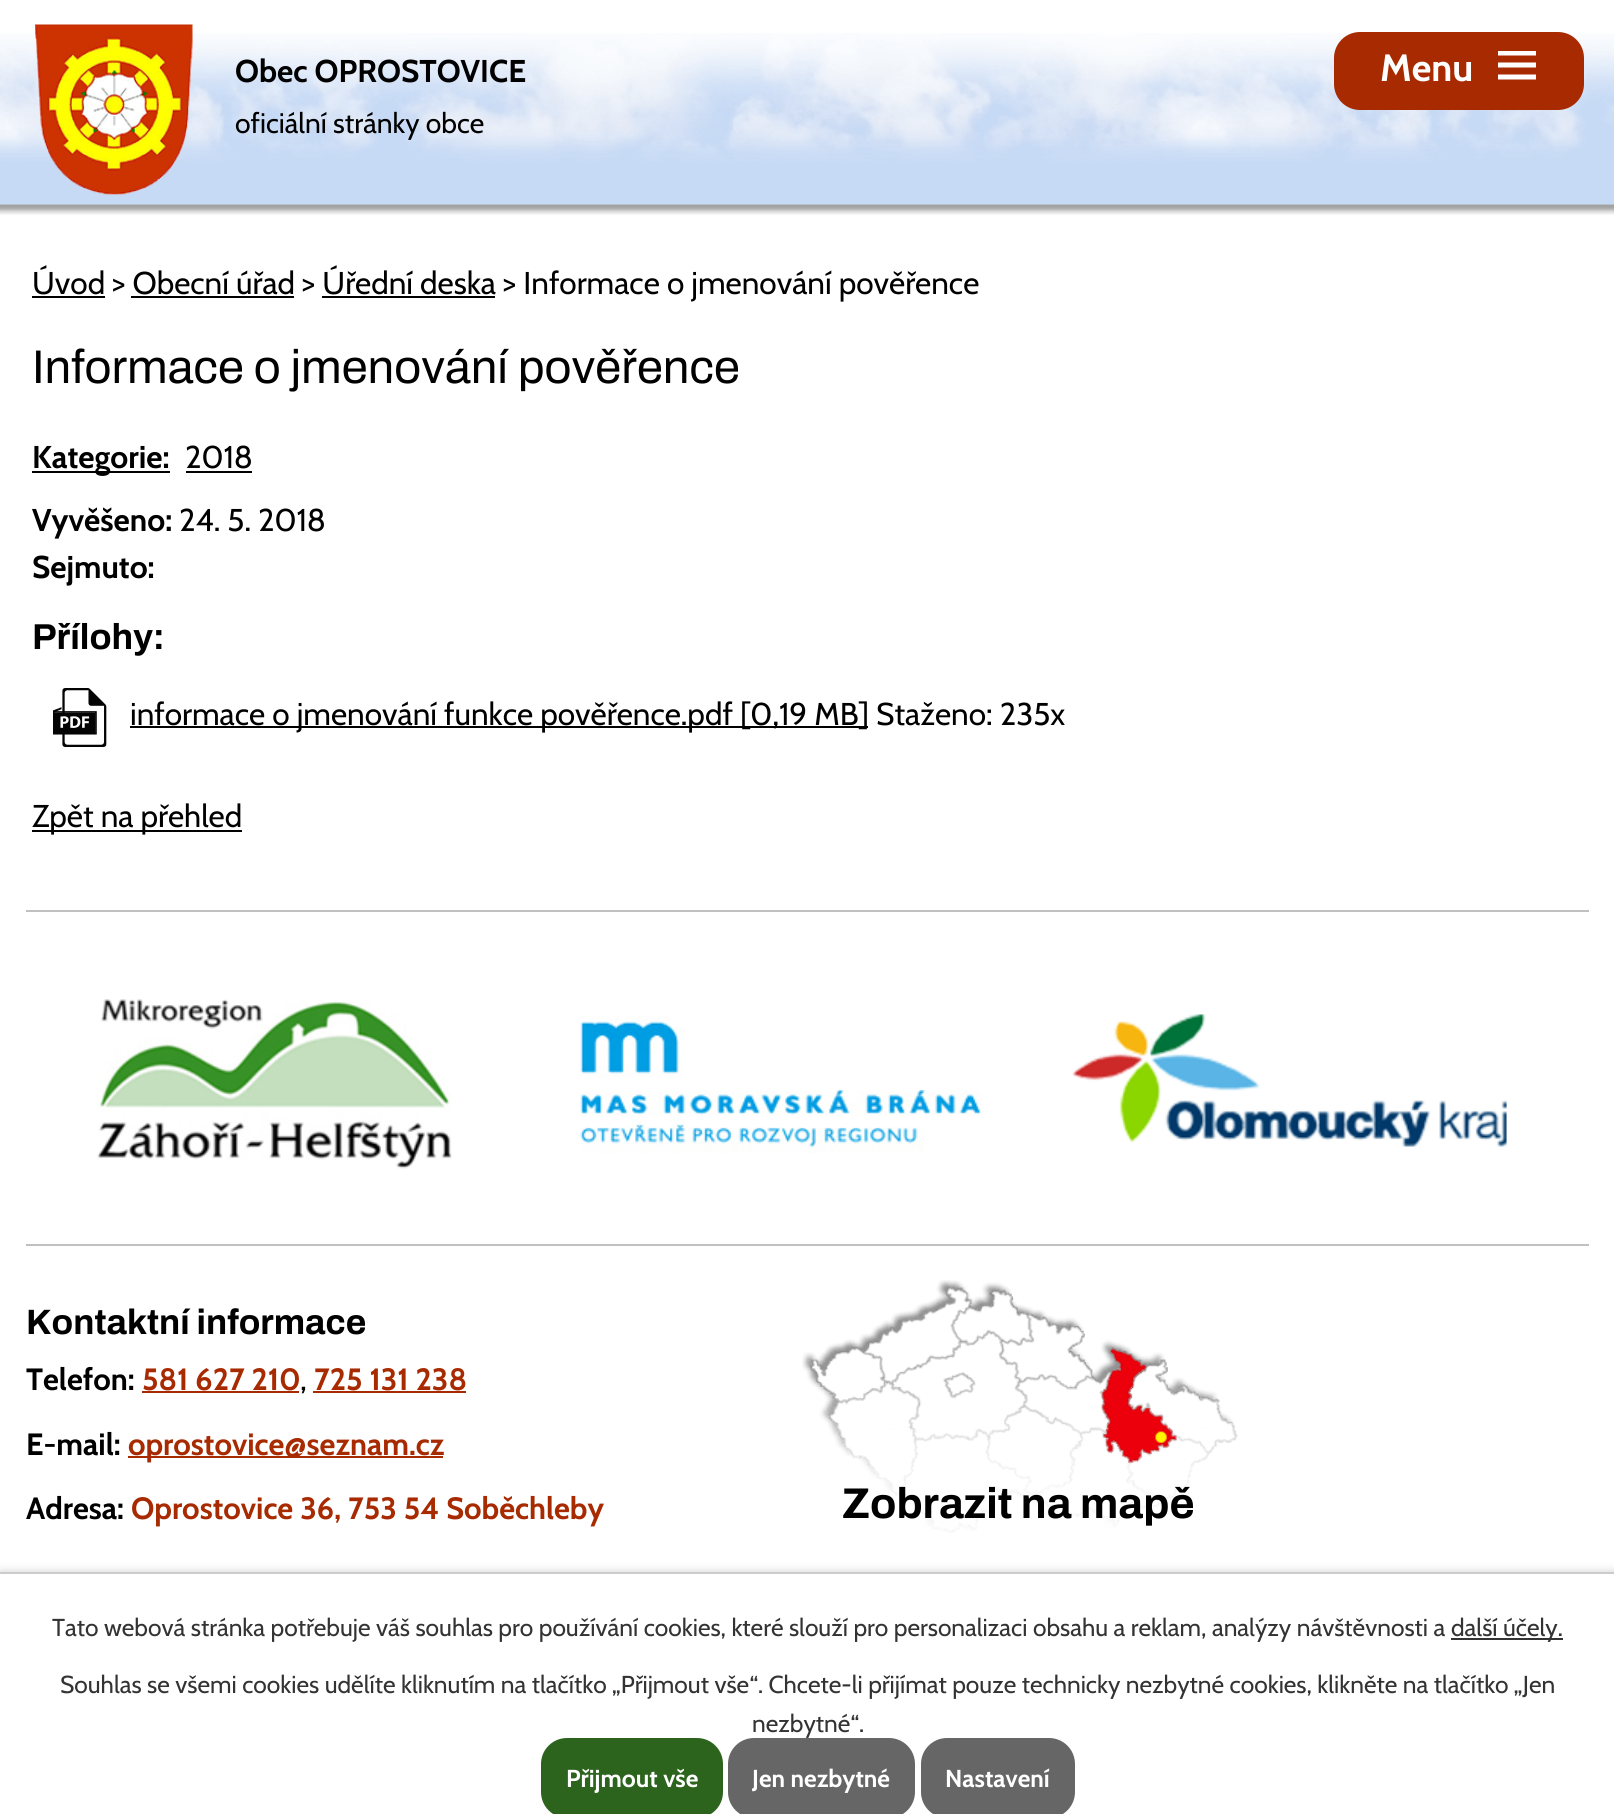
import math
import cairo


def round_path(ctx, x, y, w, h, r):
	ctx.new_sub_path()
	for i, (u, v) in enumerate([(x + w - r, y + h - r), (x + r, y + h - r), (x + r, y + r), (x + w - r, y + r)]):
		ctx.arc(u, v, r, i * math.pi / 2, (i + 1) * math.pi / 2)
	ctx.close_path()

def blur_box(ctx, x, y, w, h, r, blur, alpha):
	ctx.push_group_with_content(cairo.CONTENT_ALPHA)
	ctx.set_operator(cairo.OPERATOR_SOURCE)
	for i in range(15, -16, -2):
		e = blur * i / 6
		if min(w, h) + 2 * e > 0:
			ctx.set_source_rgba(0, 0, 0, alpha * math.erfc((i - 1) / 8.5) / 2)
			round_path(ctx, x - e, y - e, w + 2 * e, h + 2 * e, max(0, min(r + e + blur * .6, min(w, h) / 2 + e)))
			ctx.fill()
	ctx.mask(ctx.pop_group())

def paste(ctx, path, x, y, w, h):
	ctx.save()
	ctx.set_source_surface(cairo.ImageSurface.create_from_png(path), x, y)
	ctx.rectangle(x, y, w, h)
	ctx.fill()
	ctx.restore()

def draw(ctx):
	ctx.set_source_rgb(1, 1, 1)
	ctx.paint()
	paste(ctx, 'media/1.png', 0, 33, 1614, 182)
	paste(ctx, 'media/2.png', 35, 24, 158, 171)
	ctx.select_font_face('Cabin', cairo.FONT_SLANT_NORMAL, cairo.FONT_WEIGHT_BOLD)
	ctx.set_font_size(31.5)
	ctx.set_source_rgb(0, 0, 0)
	ctx.move_to(235, 82)
	ctx.show_text('Obec OPROSTOVICE')
	ctx.select_font_face('Cabin')
	ctx.set_font_size(28.25)
	ctx.move_to(235, 133)
	ctx.show_text('oficiální stránky obce')
	ctx.set_source_rgb(0.655, 0.165, 0.004)
	round_path(ctx, 1334, 32, 250, 78, 26)
	ctx.fill()
	ctx.select_font_face('Cabin', cairo.FONT_SLANT_NORMAL, cairo.FONT_WEIGHT_BOLD)
	ctx.set_font_size(38)
	ctx.set_source_rgb(1, 1, 1)
	ctx.move_to(1380, 81)
	ctx.show_text('Menu')
	ctx.new_path()
	ctx.move_to(1498, 79.5)
	ctx.line_to(1498, 74.5)
	ctx.line_to(1536, 74.5)
	ctx.line_to(1536, 79.5)
	ctx.close_path()
	ctx.move_to(1498, 51)
	ctx.line_to(1536, 51)
	ctx.line_to(1536, 55.5)
	ctx.line_to(1498, 55.5)
	ctx.close_path()
	ctx.move_to(1498, 67.5)
	ctx.line_to(1498, 62.5)
	ctx.line_to(1536, 62.5)
	ctx.line_to(1536, 67.5)
	ctx.close_path()
	ctx.fill()
	ctx.set_source_rgb(0, 0, 0)
	ctx.rectangle(32, 296, 73, 2)
	ctx.fill()
	ctx.select_font_face('Cabin')
	ctx.set_font_size(31.5)
	ctx.move_to(32, 294)
	ctx.show_text('Úvod > Obecní úřad > Úřední deska > Informace o jmenování pověřence')
	ctx.rectangle(131, 296, 163, 2)
	ctx.fill()
	ctx.rectangle(322, 296, 173, 2)
	ctx.fill()
	ctx.select_font_face('Archivo')
	ctx.set_font_size(47.25)
	ctx.move_to(32, 383)
	ctx.show_text('Informace o jmenování pověřence')
	ctx.rectangle(32, 471, 138, 2)
	ctx.fill()
	ctx.select_font_face('Cabin', cairo.FONT_SLANT_NORMAL, cairo.FONT_WEIGHT_BOLD)
	ctx.set_font_size(31.5)
	ctx.move_to(32, 468)
	ctx.show_text('Kategorie:')
	ctx.select_font_face('Cabin')
	ctx.move_to(185, 468)
	ctx.show_text('2018')
	ctx.rectangle(186, 471, 66, 2)
	ctx.fill()
	ctx.select_font_face('Cabin', cairo.FONT_SLANT_NORMAL, cairo.FONT_WEIGHT_BOLD)
	ctx.move_to(32, 531)
	ctx.show_text('Vyvěšeno:')
	ctx.select_font_face('Cabin')
	ctx.move_to(179, 531)
	ctx.show_text('24. 5. 2018')
	ctx.select_font_face('Cabin', cairo.FONT_SLANT_NORMAL, cairo.FONT_WEIGHT_BOLD)
	ctx.move_to(32, 578)
	ctx.show_text('Sejmuto:')
	ctx.select_font_face('Archivo', cairo.FONT_SLANT_NORMAL, cairo.FONT_WEIGHT_BOLD)
	ctx.set_font_size(36)
	ctx.move_to(32, 649)
	ctx.show_text('Přílohy:')
	paste(ctx, 'media/3.png', 53, 688, 54, 59)
	ctx.rectangle(130, 726, 738, 2)
	ctx.fill()
	ctx.select_font_face('Cabin')
	ctx.set_font_size(31.5)
	ctx.move_to(130, 725)
	ctx.show_text('informace o jmenování funkce pověřence.pdf [0,19 MB] Staženo: 235x')
	ctx.rectangle(32, 830, 210, 2)
	ctx.fill()
	ctx.move_to(32, 827)
	ctx.show_text('Zpět na přehled')
	ctx.set_source_rgb(0.753, 0.753, 0.753)
	ctx.rectangle(26, 910, 1563, 2)
	ctx.fill()
	paste(ctx, 'media/4.png', 97, 999, 355, 170)
	paste(ctx, 'media/5.png', 580, 1016, 402, 137)
	paste(ctx, 'media/6.png', 1072, 1014, 435, 133)
	ctx.rectangle(26, 1244, 1563, 2)
	ctx.fill()
	ctx.select_font_face('Archivo', cairo.FONT_SLANT_NORMAL, cairo.FONT_WEIGHT_BOLD)
	ctx.set_font_size(35.25)
	ctx.set_source_rgb(0, 0, 0)
	ctx.move_to(26, 1334)
	ctx.show_text('Kontaktní informace')
	ctx.select_font_face('Cabin', cairo.FONT_SLANT_NORMAL, cairo.FONT_WEIGHT_BOLD)
	ctx.set_font_size(30.75)
	ctx.move_to(26, 1390)
	ctx.show_text('Telefon:')
	ctx.set_source_rgb(0.655, 0.165, 0.004)
	ctx.move_to(142, 1390)
	ctx.show_text('581 627 210')
	ctx.rectangle(142, 1391, 157, 2)
	ctx.fill()
	ctx.select_font_face('Cabin')
	ctx.set_source_rgb(0, 0, 0)
	ctx.move_to(300, 1390)
	ctx.show_text(',')
	ctx.select_font_face('Cabin', cairo.FONT_SLANT_NORMAL, cairo.FONT_WEIGHT_BOLD)
	ctx.set_source_rgb(0.655, 0.165, 0.004)
	ctx.move_to(314, 1390)
	ctx.show_text('725 131 238')
	ctx.rectangle(313, 1391, 153, 2)
	ctx.fill()
	ctx.set_source_rgb(0, 0, 0)
	ctx.move_to(26, 1455)
	ctx.show_text('E-mail:')
	ctx.set_source_rgb(0.655, 0.165, 0.004)
	ctx.rectangle(128, 1456, 315, 2)
	ctx.fill()
	ctx.move_to(128, 1455)
	ctx.show_text('oprostovice@seznam.cz')
	ctx.set_source_rgb(0, 0, 0)
	ctx.move_to(26, 1519)
	ctx.show_text('Adresa:')
	ctx.set_source_rgb(0.655, 0.165, 0.004)
	ctx.move_to(131, 1519)
	ctx.show_text('Oprostovice 36, 753 54 Soběchleby')
	paste(ctx, 'media/7.png', 802, 1280, 436, 253)
	ctx.select_font_face('Archivo', cairo.FONT_SLANT_NORMAL, cairo.FONT_WEIGHT_BOLD)
	ctx.set_font_size(43)
	ctx.set_source_rgb(0, 0, 0)
	ctx.move_to(842, 1518)
	ctx.show_text('Zobrazit na mapě')
	ctx.set_source_rgb(0, 0, 0)
	blur_box(ctx, 0, 1572, 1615, 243, 0, 4.5, 0.2)
	ctx.set_source_rgb(1, 1, 1)
	ctx.rectangle(0, 1574, 1614, 240)
	ctx.fill()
	ctx.set_source_rgb(0.8, 0.8, 0.8)
	ctx.rectangle(0, 1572, 1614, 2)
	ctx.fill()
	ctx.select_font_face('Cabin')
	ctx.set_font_size(24.5)
	ctx.set_source_rgb(0.2, 0.2, 0.2)
	ctx.move_to(52, 1636)
	ctx.show_text('Tato webová stránka potřebuje váš souhlas pro používání cookies, které slouží pro personalizaci obsahu a reklam, analýzy návštěvnosti a')
	ctx.rectangle(1451, 1638, 112, 2)
	ctx.fill()
	for x, y, s in [
		(1451, 1636, 'další účely.'),
		(60, 1693, 'Souhlas se všemi cookies udělíte kliknutím na tlačítko „Přijmout vše“. Chcete-li přijímat pouze technicky nezbytné cookies, klikněte na tlačítko „Jen'),
		(752, 1732, 'nezbytné“.'),
	]:
		ctx.move_to(x, y)
		ctx.show_text(s)
	ctx.set_source_rgb(0.173, 0.388, 0.114)
	round_path(ctx, 541, 1738, 182, 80, 26)
	ctx.fill()
	ctx.select_font_face('Cabin', cairo.FONT_SLANT_NORMAL, cairo.FONT_WEIGHT_BOLD)
	ctx.set_source_rgb(1, 1, 1)
	ctx.move_to(566, 1787)
	ctx.show_text('Přijmout vše')
	ctx.set_source_rgb(0.4, 0.4, 0.4)
	round_path(ctx, 728, 1738, 187, 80, 26)
	ctx.fill()
	ctx.set_source_rgb(1, 1, 1)
	ctx.move_to(752, 1787)
	ctx.show_text('Jen nezbytné')
	ctx.set_source_rgb(0.4, 0.4, 0.4)
	round_path(ctx, 921, 1738, 154, 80, 26)
	ctx.fill()
	ctx.set_source_rgb(1, 1, 1)
	ctx.move_to(945, 1787)
	ctx.show_text('Nastavení')


surface = cairo.ImageSurface(cairo.FORMAT_RGB24, 1614, 1814)
ctx = cairo.Context(surface)
options = cairo.FontOptions()
options.set_hint_metrics(cairo.HINT_METRICS_OFF)
options.set_hint_style(cairo.HINT_STYLE_NONE)
ctx.set_font_options(options)
ctx.set_miter_limit(4)
draw(ctx)
surface.write_to_png('image.png')
